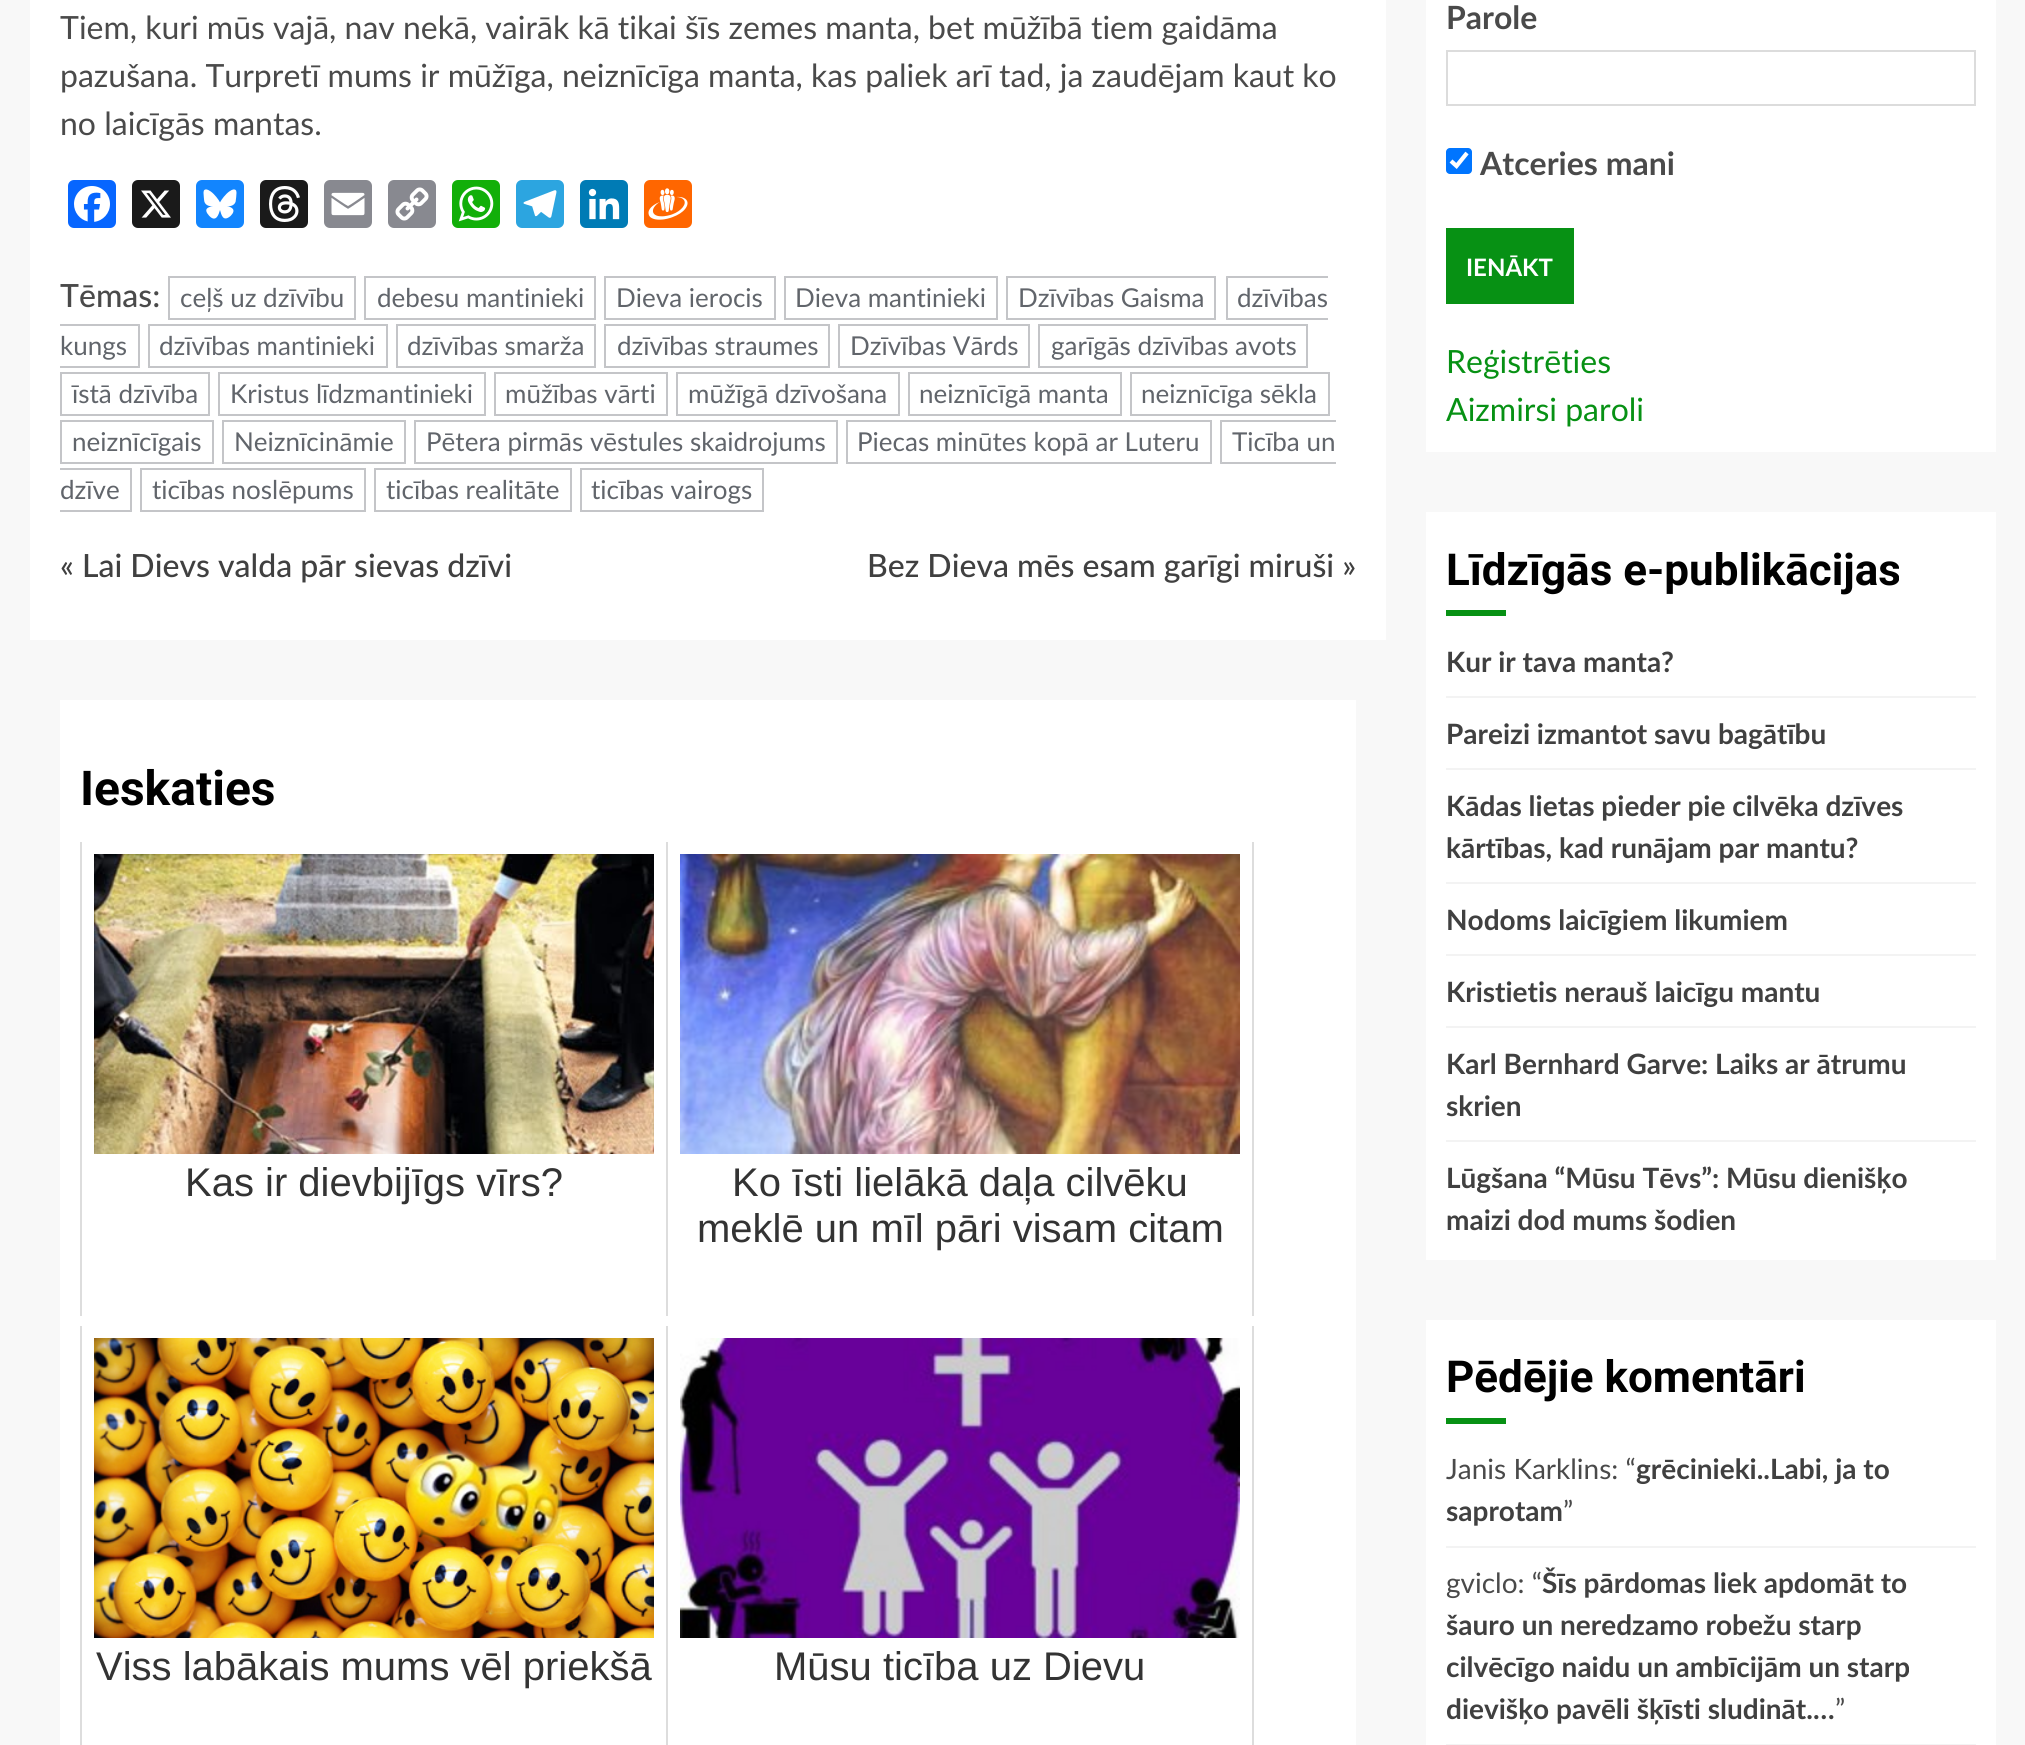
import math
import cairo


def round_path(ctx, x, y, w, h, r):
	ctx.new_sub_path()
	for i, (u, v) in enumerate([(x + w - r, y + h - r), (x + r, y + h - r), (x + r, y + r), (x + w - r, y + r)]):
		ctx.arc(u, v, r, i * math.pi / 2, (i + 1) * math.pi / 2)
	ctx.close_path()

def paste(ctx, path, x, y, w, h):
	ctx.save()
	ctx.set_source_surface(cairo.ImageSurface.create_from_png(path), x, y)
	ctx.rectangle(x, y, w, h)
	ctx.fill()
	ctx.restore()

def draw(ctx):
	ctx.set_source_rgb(0.969, 0.969, 0.969)
	ctx.paint()
	ctx.set_source_rgb(1, 1, 1)
	ctx.rectangle(30, 0, 1356, 640)
	ctx.fill()
	ctx.select_font_face('Lato')
	ctx.set_font_size(32)
	ctx.set_source_rgb(0.29, 0.29, 0.29)
	for x, y, s in [
		(60, 39, 'Tiem, kuri mūs vajā, nav nekā, vairāk kā tikai šīs zemes manta, bet mūžībā tiem gaidāma'),
		(60, 87, 'pazušana. Turpretī mums ir mūžīga, neiznīcīga manta, kas paliek arī tad, ja zaudējam kaut ko'),
		(60, 135, 'no laicīgās mantas.'),
	]:
		ctx.move_to(x, y)
		ctx.show_text(s)
	ctx.set_source_rgb(0.031, 0.4, 1)
	round_path(ctx, 68, 180, 48, 48, 6)
	ctx.fill()
	paste(ctx, 'media/1.png', 74, 186, 36, 36)
	ctx.set_source_rgb(0.102, 0.102, 0.102)
	round_path(ctx, 132, 180, 48, 48, 6)
	ctx.fill()
	paste(ctx, 'media/2.png', 141, 190, 30, 28)
	ctx.set_source_rgb(0.071, 0.522, 0.996)
	round_path(ctx, 196, 180, 48, 48, 6)
	ctx.fill()
	paste(ctx, 'media/3.png', 203, 189, 34, 30)
	ctx.set_source_rgb(0.102, 0.102, 0.102)
	round_path(ctx, 260, 180, 48, 48, 6)
	ctx.fill()
	paste(ctx, 'media/4.png', 269, 186, 31, 36)
	ctx.set_source_rgb(0.533, 0.537, 0.565)
	round_path(ctx, 324, 180, 48, 48, 6)
	ctx.fill()
	paste(ctx, 'media/5.png', 331, 192, 34, 24)
	round_path(ctx, 388, 180, 48, 48, 6)
	ctx.fill()
	paste(ctx, 'media/6.png', 395, 187, 34, 34)
	ctx.set_source_rgb(0.071, 0.686, 0.039)
	round_path(ctx, 452, 180, 48, 48, 6)
	ctx.fill()
	paste(ctx, 'media/7.png', 458, 186, 36, 36)
	ctx.set_source_rgb(0.173, 0.647, 0.878)
	round_path(ctx, 516, 180, 48, 48, 6)
	ctx.fill()
	paste(ctx, 'media/8.png', 523, 190, 34, 28)
	ctx.set_source_rgb(0, 0.482, 0.71)
	round_path(ctx, 580, 180, 48, 48, 6)
	ctx.fill()
	paste(ctx, 'media/9.png', 588, 188, 32, 32)
	ctx.set_source_rgb(1, 0.4, 0)
	round_path(ctx, 644, 180, 48, 48, 6)
	ctx.fill()
	paste(ctx, 'media/10.png', 648, 188, 40, 32)
	ctx.select_font_face('Lato Medium')
	ctx.set_source_rgb(0.29, 0.29, 0.29)
	ctx.move_to(60, 307)
	ctx.show_text('Tēmas:')
	ctx.rectangle(169, 277, 186, 42)
	ctx.set_source_rgb(0.769, 0.773, 0.784)
	ctx.stroke()
	ctx.select_font_face('Lato')
	ctx.set_font_size(26)
	ctx.set_source_rgb(0.38, 0.396, 0.42)
	ctx.move_to(180, 307)
	ctx.show_text('ceļš uz dzīvību')
	ctx.rectangle(365, 277, 230, 42)
	ctx.set_source_rgb(0.769, 0.773, 0.784)
	ctx.stroke()
	ctx.set_source_rgb(0.38, 0.396, 0.42)
	ctx.move_to(377, 307)
	ctx.show_text('debesu mantinieki')
	ctx.rectangle(605, 277, 170, 42)
	ctx.set_source_rgb(0.769, 0.773, 0.784)
	ctx.stroke()
	ctx.set_source_rgb(0.38, 0.396, 0.42)
	ctx.move_to(616, 307)
	ctx.show_text('Dieva ierocis')
	ctx.rectangle(785, 277, 212, 42)
	ctx.set_source_rgb(0.769, 0.773, 0.784)
	ctx.stroke()
	ctx.set_source_rgb(0.38, 0.396, 0.42)
	ctx.move_to(795, 307)
	ctx.show_text('Dieva mantinieki')
	ctx.rectangle(1007, 277, 208, 42)
	ctx.set_source_rgb(0.769, 0.773, 0.784)
	ctx.stroke()
	ctx.set_source_rgb(0.38, 0.396, 0.42)
	ctx.move_to(1018, 307)
	ctx.show_text('Dzīvības Gaisma')
	ctx.move_to(1237, 307)
	ctx.show_text('dzīvības')
	ctx.set_source_rgb(0.769, 0.773, 0.784)
	ctx.new_path()
	ctx.move_to(1226, 276)
	ctx.line_to(1328, 276)
	ctx.line_to(1328, 278)
	ctx.line_to(1228, 278)
	ctx.close_path()
	ctx.fill()
	ctx.new_path()
	ctx.move_to(1328, 320)
	ctx.line_to(1226, 320)
	ctx.line_to(1228, 318)
	ctx.line_to(1328, 318)
	ctx.close_path()
	ctx.fill()
	ctx.set_source_rgba(0.224, 0.243, 0.275, 0.3)
	ctx.new_path()
	ctx.move_to(1226, 320)
	ctx.line_to(1226, 276)
	ctx.line_to(1228, 278)
	ctx.line_to(1228, 318)
	ctx.close_path()
	ctx.fill()
	ctx.set_source_rgb(0.38, 0.396, 0.42)
	ctx.move_to(60, 355)
	ctx.show_text('kungs')
	ctx.set_source_rgb(0.769, 0.773, 0.784)
	ctx.new_path()
	ctx.move_to(60, 324)
	ctx.line_to(140, 324)
	ctx.line_to(138, 326)
	ctx.line_to(60, 326)
	ctx.close_path()
	ctx.fill()
	ctx.set_source_rgba(0.224, 0.243, 0.275, 0.3)
	ctx.new_path()
	ctx.move_to(140, 324)
	ctx.line_to(140, 368)
	ctx.line_to(138, 366)
	ctx.line_to(138, 326)
	ctx.close_path()
	ctx.fill()
	ctx.new_path()
	ctx.move_to(140, 368)
	ctx.line_to(60, 368)
	ctx.line_to(60, 366)
	ctx.line_to(138, 366)
	ctx.close_path()
	ctx.fill()
	ctx.rectangle(149, 325, 238, 42)
	ctx.set_source_rgb(0.769, 0.773, 0.784)
	ctx.stroke()
	ctx.set_source_rgb(0.38, 0.396, 0.42)
	ctx.move_to(159, 355)
	ctx.show_text('dzīvības mantinieki')
	ctx.rectangle(397, 325, 198, 42)
	ctx.set_source_rgb(0.769, 0.773, 0.784)
	ctx.stroke()
	ctx.set_source_rgb(0.38, 0.396, 0.42)
	ctx.move_to(407, 355)
	ctx.show_text('dzīvības smarža')
	ctx.rectangle(605, 325, 224, 42)
	ctx.set_source_rgb(0.769, 0.773, 0.784)
	ctx.stroke()
	ctx.set_source_rgb(0.38, 0.396, 0.42)
	ctx.move_to(617, 355)
	ctx.show_text('dzīvības straumes')
	ctx.rectangle(839, 325, 190, 42)
	ctx.set_source_rgb(0.769, 0.773, 0.784)
	ctx.stroke()
	ctx.set_source_rgb(0.38, 0.396, 0.42)
	ctx.move_to(850, 355)
	ctx.show_text('Dzīvības Vārds')
	ctx.rectangle(1039, 325, 268, 42)
	ctx.set_source_rgb(0.769, 0.773, 0.784)
	ctx.stroke()
	ctx.set_source_rgb(0.38, 0.396, 0.42)
	ctx.move_to(1051, 355)
	ctx.show_text('garīgās dzīvības avots')
	ctx.rectangle(61, 373, 148, 42)
	ctx.set_source_rgb(0.769, 0.773, 0.784)
	ctx.stroke()
	ctx.set_source_rgb(0.38, 0.396, 0.42)
	ctx.move_to(72, 403)
	ctx.show_text('īstā dzīvība')
	ctx.rectangle(219, 373, 266, 42)
	ctx.set_source_rgb(0.769, 0.773, 0.784)
	ctx.stroke()
	ctx.set_source_rgb(0.38, 0.396, 0.42)
	ctx.move_to(230, 403)
	ctx.show_text('Kristus līdzmantinieki')
	ctx.rectangle(495, 373, 172, 42)
	ctx.set_source_rgb(0.769, 0.773, 0.784)
	ctx.stroke()
	ctx.set_source_rgb(0.38, 0.396, 0.42)
	ctx.move_to(505, 403)
	ctx.show_text('mūžības vārti')
	ctx.rectangle(677, 373, 222, 42)
	ctx.set_source_rgb(0.769, 0.773, 0.784)
	ctx.stroke()
	ctx.set_source_rgb(0.38, 0.396, 0.42)
	ctx.move_to(688, 403)
	ctx.show_text('mūžīgā dzīvošana')
	ctx.rectangle(909, 373, 212, 42)
	ctx.set_source_rgb(0.769, 0.773, 0.784)
	ctx.stroke()
	ctx.set_source_rgb(0.38, 0.396, 0.42)
	ctx.move_to(919, 403)
	ctx.show_text('neiznīcīgā manta')
	ctx.rectangle(1131, 373, 198, 42)
	ctx.set_source_rgb(0.769, 0.773, 0.784)
	ctx.stroke()
	ctx.set_source_rgb(0.38, 0.396, 0.42)
	ctx.move_to(1141, 403)
	ctx.show_text('neiznīcīga sēkla')
	ctx.rectangle(61, 421, 152, 42)
	ctx.set_source_rgb(0.769, 0.773, 0.784)
	ctx.stroke()
	ctx.set_source_rgb(0.38, 0.396, 0.42)
	ctx.move_to(72, 451)
	ctx.show_text('neiznīcīgais')
	ctx.rectangle(223, 421, 182, 42)
	ctx.set_source_rgb(0.769, 0.773, 0.784)
	ctx.stroke()
	ctx.set_source_rgb(0.38, 0.396, 0.42)
	ctx.move_to(234, 451)
	ctx.show_text('Neiznīcināmie')
	ctx.rectangle(415, 421, 422, 42)
	ctx.set_source_rgb(0.769, 0.773, 0.784)
	ctx.stroke()
	ctx.set_source_rgb(0.38, 0.396, 0.42)
	ctx.move_to(426, 451)
	ctx.show_text('Pētera pirmās vēstules skaidrojums')
	ctx.rectangle(847, 421, 364, 42)
	ctx.set_source_rgb(0.769, 0.773, 0.784)
	ctx.stroke()
	ctx.set_source_rgb(0.38, 0.396, 0.42)
	ctx.move_to(857, 451)
	ctx.show_text('Piecas minūtes kopā ar Luteru')
	ctx.move_to(1232, 451)
	ctx.show_text('Ticība un')
	ctx.set_source_rgb(0.769, 0.773, 0.784)
	ctx.new_path()
	ctx.move_to(1220, 420)
	ctx.line_to(1336, 420)
	ctx.line_to(1336, 422)
	ctx.line_to(1222, 422)
	ctx.close_path()
	ctx.fill()
	ctx.new_path()
	ctx.move_to(1336, 464)
	ctx.line_to(1220, 464)
	ctx.line_to(1222, 462)
	ctx.line_to(1336, 462)
	ctx.close_path()
	ctx.fill()
	ctx.set_source_rgba(0.224, 0.243, 0.275, 0.3)
	ctx.new_path()
	ctx.move_to(1220, 464)
	ctx.line_to(1220, 420)
	ctx.line_to(1222, 422)
	ctx.line_to(1222, 462)
	ctx.close_path()
	ctx.fill()
	ctx.set_source_rgb(0.38, 0.396, 0.42)
	ctx.move_to(60, 499)
	ctx.show_text('dzīve')
	ctx.set_source_rgb(0.769, 0.773, 0.784)
	ctx.new_path()
	ctx.move_to(60, 468)
	ctx.line_to(132, 468)
	ctx.line_to(130, 470)
	ctx.line_to(60, 470)
	ctx.close_path()
	ctx.fill()
	ctx.set_source_rgba(0.224, 0.243, 0.275, 0.3)
	ctx.new_path()
	ctx.move_to(132, 468)
	ctx.line_to(132, 512)
	ctx.line_to(130, 510)
	ctx.line_to(130, 470)
	ctx.close_path()
	ctx.fill()
	ctx.new_path()
	ctx.move_to(132, 512)
	ctx.line_to(60, 512)
	ctx.line_to(60, 510)
	ctx.line_to(130, 510)
	ctx.close_path()
	ctx.fill()
	ctx.rectangle(141, 469, 224, 42)
	ctx.set_source_rgb(0.769, 0.773, 0.784)
	ctx.stroke()
	ctx.set_source_rgb(0.38, 0.396, 0.42)
	ctx.move_to(152, 499)
	ctx.show_text('ticības noslēpums')
	ctx.rectangle(375, 469, 196, 42)
	ctx.set_source_rgb(0.769, 0.773, 0.784)
	ctx.stroke()
	ctx.set_source_rgb(0.38, 0.396, 0.42)
	ctx.move_to(386, 499)
	ctx.show_text('ticības realitāte')
	ctx.rectangle(581, 469, 182, 42)
	ctx.set_source_rgb(0.769, 0.773, 0.784)
	ctx.stroke()
	ctx.set_source_rgb(0.38, 0.396, 0.42)
	ctx.move_to(591, 499)
	ctx.show_text('ticības vairogs')
	ctx.select_font_face('Lato Medium')
	ctx.set_font_size(32)
	ctx.set_source_rgb(0.251, 0.251, 0.251)
	ctx.move_to(60, 577)
	ctx.show_text('« Lai Dievs valda pār sievas dzīvi')
	ctx.move_to(867, 577)
	ctx.show_text('Bez Dieva mēs esam garīgi miruši »')
	ctx.set_source_rgb(1, 1, 1)
	ctx.rectangle(60, 700, 1296, 1045)
	ctx.fill()
	ctx.select_font_face('Roboto', cairo.FONT_SLANT_NORMAL, cairo.FONT_WEIGHT_BOLD)
	ctx.set_font_size(48)
	ctx.set_source_rgb(0, 0, 0)
	ctx.move_to(80, 805)
	ctx.show_text('Ieskaties')
	ctx.set_source_rgb(0.867, 0.867, 0.867)
	ctx.rectangle(80, 842, 2, 474)
	ctx.fill()
	paste(ctx, 'media/11.png', 94, 854, 560, 300)
	ctx.select_font_face('Liberation Sans')
	ctx.set_font_size(40)
	ctx.set_source_rgb(0.2, 0.2, 0.2)
	ctx.move_to(185, 1196)
	ctx.show_text('Kas ir dievbijīgs vīrs?')
	ctx.set_source_rgb(0.867, 0.867, 0.867)
	ctx.rectangle(1252, 842, 2, 474)
	ctx.fill()
	ctx.rectangle(666, 842, 2, 474)
	ctx.fill()
	paste(ctx, 'media/12.png', 680, 854, 560, 300)
	ctx.set_source_rgb(0.2, 0.2, 0.2)
	ctx.move_to(732, 1196)
	ctx.show_text('Ko īsti lielākā daļa cilvēku')
	ctx.move_to(697, 1242)
	ctx.show_text('meklē un mīl pāri visam citam')
	ctx.set_source_rgb(0.867, 0.867, 0.867)
	ctx.rectangle(80, 1326, 2, 419)
	ctx.fill()
	paste(ctx, 'media/13.png', 94, 1338, 560, 300)
	ctx.set_source_rgb(0.2, 0.2, 0.2)
	ctx.move_to(96, 1680)
	ctx.show_text('Viss labākais mums vēl priekšā')
	ctx.set_source_rgb(0.867, 0.867, 0.867)
	ctx.rectangle(1252, 1326, 2, 419)
	ctx.fill()
	ctx.rectangle(666, 1326, 2, 419)
	ctx.fill()
	paste(ctx, 'media/14.png', 680, 1338, 560, 300)
	ctx.set_source_rgb(0.2, 0.2, 0.2)
	ctx.move_to(774, 1680)
	ctx.show_text('Mūsu ticība uz Dievu')
	ctx.set_source_rgb(1, 1, 1)
	ctx.rectangle(1426, 0, 570, 452)
	ctx.fill()
	ctx.select_font_face('Lato', cairo.FONT_SLANT_NORMAL, cairo.FONT_WEIGHT_BOLD)
	ctx.set_font_size(32)
	ctx.set_source_rgb(0.29, 0.29, 0.29)
	ctx.move_to(1446, 29)
	ctx.show_text('Parole')
	ctx.rectangle(1447, 51, 528, 54)
	ctx.set_source_rgb(0.863, 0.863, 0.863)
	ctx.stroke()
	ctx.set_source_rgb(0, 0.459, 1)
	round_path(ctx, 1446, 148, 26, 26, 4)
	ctx.fill()
	ctx.new_path()
	ctx.move_to(1451, 161)
	ctx.line_to(1456.5, 166)
	ctx.line_to(1467, 153)
	ctx.set_source_rgb(1, 1, 1)
	ctx.set_line_width(4.2)
	ctx.stroke()
	ctx.set_source_rgb(0.29, 0.29, 0.29)
	ctx.move_to(1480, 175)
	ctx.show_text('Atceries mani')
	ctx.set_source_rgb(0.031, 0.569, 0.082)
	ctx.rectangle(1446, 228, 128, 76)
	ctx.fill()
	ctx.set_font_size(24)
	ctx.set_source_rgb(1, 1, 1)
	ctx.move_to(1466, 276)
	ctx.show_text('IENĀKT')
	ctx.select_font_face('Lato')
	ctx.set_font_size(32)
	ctx.set_source_rgb(0.031, 0.569, 0.082)
	ctx.move_to(1446, 373)
	ctx.show_text('Reģistrēties')
	ctx.move_to(1446, 421)
	ctx.show_text('Aizmirsi paroli')
	ctx.set_source_rgb(1, 1, 1)
	ctx.rectangle(1426, 512, 570, 748)
	ctx.fill()
	ctx.select_font_face('Roboto', cairo.FONT_SLANT_NORMAL, cairo.FONT_WEIGHT_BOLD)
	ctx.set_font_size(44)
	ctx.set_source_rgb(0, 0, 0)
	ctx.move_to(1446, 585)
	ctx.show_text('Līdzīgās e-publikācijas')
	ctx.set_source_rgb(0.031, 0.569, 0.082)
	ctx.rectangle(1446, 610, 60, 6)
	ctx.fill()
	ctx.set_source_rgb(0.953, 0.953, 0.953)
	ctx.rectangle(1446, 696, 530, 2)
	ctx.fill()
	ctx.select_font_face('Lato', cairo.FONT_SLANT_NORMAL, cairo.FONT_WEIGHT_BOLD)
	ctx.set_font_size(28)
	ctx.set_source_rgb(0.251, 0.251, 0.251)
	ctx.move_to(1446, 672)
	ctx.show_text('Kur ir tava manta?')
	ctx.set_source_rgb(0.953, 0.953, 0.953)
	ctx.rectangle(1446, 768, 530, 2)
	ctx.fill()
	ctx.set_source_rgb(0.251, 0.251, 0.251)
	ctx.move_to(1446, 744)
	ctx.show_text('Pareizi izmantot savu bagātību')
	ctx.set_source_rgb(0.953, 0.953, 0.953)
	ctx.rectangle(1446, 882, 530, 2)
	ctx.fill()
	ctx.set_source_rgb(0.251, 0.251, 0.251)
	ctx.move_to(1446, 816)
	ctx.show_text('Kādas lietas pieder pie cilvēka dzīves')
	ctx.move_to(1446, 858)
	ctx.show_text('kārtības, kad runājam par mantu?')
	ctx.set_source_rgb(0.953, 0.953, 0.953)
	ctx.rectangle(1446, 954, 530, 2)
	ctx.fill()
	ctx.set_source_rgb(0.251, 0.251, 0.251)
	ctx.move_to(1446, 930)
	ctx.show_text('Nodoms laicīgiem likumiem')
	ctx.set_source_rgb(0.953, 0.953, 0.953)
	ctx.rectangle(1446, 1026, 530, 2)
	ctx.fill()
	ctx.set_source_rgb(0.251, 0.251, 0.251)
	ctx.move_to(1446, 1002)
	ctx.show_text('Kristietis nerauš laicīgu mantu')
	ctx.set_source_rgb(0.953, 0.953, 0.953)
	ctx.rectangle(1446, 1140, 530, 2)
	ctx.fill()
	ctx.set_source_rgb(0.251, 0.251, 0.251)
	for x, y, s in [
		(1446, 1074, 'Karl Bernhard Garve: Laiks ar ātrumu'),
		(1446, 1116, 'skrien'),
		(1446, 1188, 'Lūgšana “Mūsu Tēvs”: Mūsu dienišķo'),
		(1446, 1230, 'maizi dod mums šodien'),
	]:
		ctx.move_to(x, y)
		ctx.show_text(s)
	ctx.set_source_rgb(1, 1, 1)
	ctx.rectangle(1426, 1320, 570, 425)
	ctx.fill()
	ctx.select_font_face('Roboto', cairo.FONT_SLANT_NORMAL, cairo.FONT_WEIGHT_BOLD)
	ctx.set_font_size(44)
	ctx.set_source_rgb(0, 0, 0)
	ctx.move_to(1446, 1392)
	ctx.show_text('Pēdējie komentāri')
	ctx.set_source_rgb(0.031, 0.569, 0.082)
	ctx.rectangle(1446, 1418, 60, 6)
	ctx.fill()
	ctx.set_source_rgb(0.953, 0.953, 0.953)
	ctx.rectangle(1446, 1546, 530, 2)
	ctx.fill()
	ctx.select_font_face('Lato')
	ctx.set_font_size(28)
	ctx.set_source_rgb(0.29, 0.29, 0.29)
	ctx.move_to(1446, 1479)
	ctx.show_text('Janis Karklins: “')
	ctx.select_font_face('Lato', cairo.FONT_SLANT_NORMAL, cairo.FONT_WEIGHT_BOLD)
	ctx.set_source_rgb(0.251, 0.251, 0.251)
	ctx.move_to(1636, 1479)
	ctx.show_text('grēcinieki..Labi, ja to')
	ctx.move_to(1446, 1521)
	ctx.show_text('saprotam')
	ctx.select_font_face('Lato')
	ctx.set_source_rgb(0.29, 0.29, 0.29)
	ctx.move_to(1563, 1521)
	ctx.show_text('”')
	ctx.set_source_rgb(0.953, 0.953, 0.953)
	ctx.rectangle(1446, 1744, 530, 1)
	ctx.fill()
	ctx.set_source_rgb(0.29, 0.29, 0.29)
	ctx.move_to(1446, 1593)
	ctx.show_text('gviclo: “')
	ctx.select_font_face('Lato', cairo.FONT_SLANT_NORMAL, cairo.FONT_WEIGHT_BOLD)
	ctx.set_source_rgb(0.251, 0.251, 0.251)
	for x, y, s in [
		(1542, 1593, 'Šīs pārdomas liek apdomāt to'),
		(1446, 1635, 'šauro un neredzamo robežu starp'),
		(1446, 1677, 'cilvēcīgo naidu un ambīcijām un starp'),
		(1446, 1719, 'dievišķo pavēli šķīsti sludināt.…'),
	]:
		ctx.move_to(x, y)
		ctx.show_text(s)
	ctx.select_font_face('Lato')
	ctx.set_source_rgb(0.29, 0.29, 0.29)
	ctx.move_to(1835, 1719)
	ctx.show_text('”')


surface = cairo.ImageSurface(cairo.FORMAT_RGB24, 2025, 1745)
ctx = cairo.Context(surface)
options = cairo.FontOptions()
options.set_hint_metrics(cairo.HINT_METRICS_OFF)
options.set_hint_style(cairo.HINT_STYLE_NONE)
ctx.set_font_options(options)
ctx.set_miter_limit(4)
draw(ctx)
surface.write_to_png('image.png')
